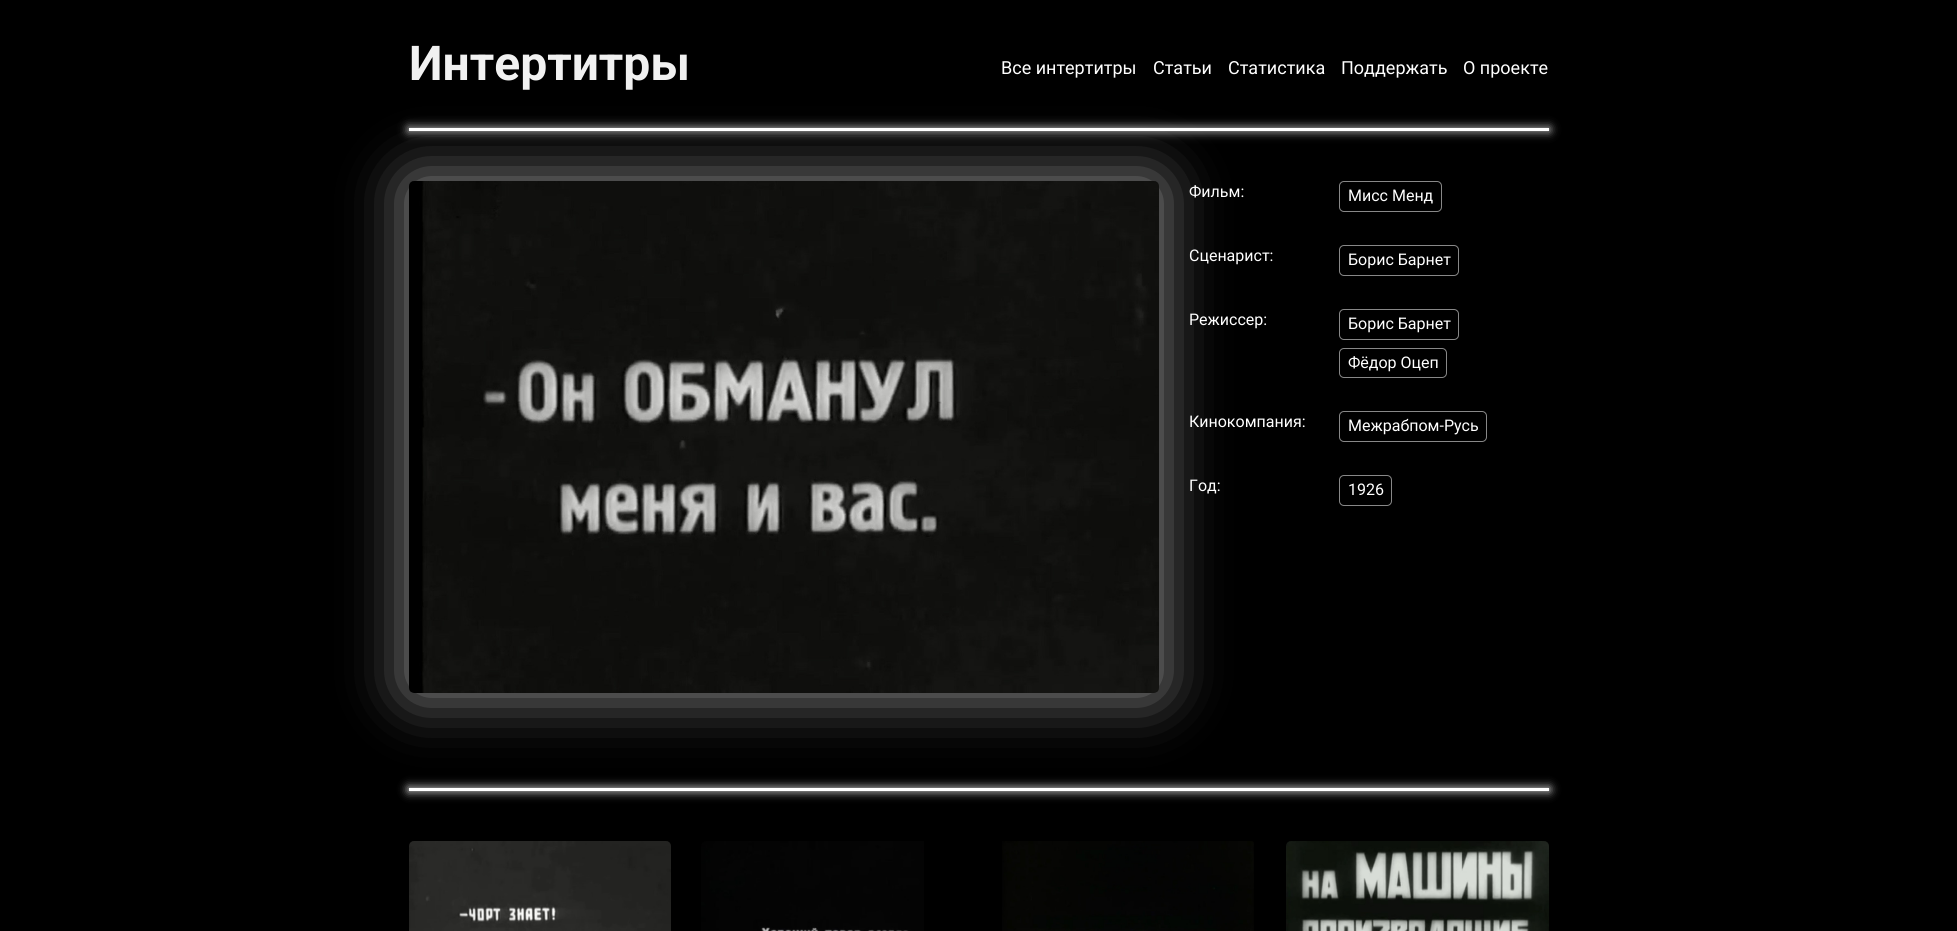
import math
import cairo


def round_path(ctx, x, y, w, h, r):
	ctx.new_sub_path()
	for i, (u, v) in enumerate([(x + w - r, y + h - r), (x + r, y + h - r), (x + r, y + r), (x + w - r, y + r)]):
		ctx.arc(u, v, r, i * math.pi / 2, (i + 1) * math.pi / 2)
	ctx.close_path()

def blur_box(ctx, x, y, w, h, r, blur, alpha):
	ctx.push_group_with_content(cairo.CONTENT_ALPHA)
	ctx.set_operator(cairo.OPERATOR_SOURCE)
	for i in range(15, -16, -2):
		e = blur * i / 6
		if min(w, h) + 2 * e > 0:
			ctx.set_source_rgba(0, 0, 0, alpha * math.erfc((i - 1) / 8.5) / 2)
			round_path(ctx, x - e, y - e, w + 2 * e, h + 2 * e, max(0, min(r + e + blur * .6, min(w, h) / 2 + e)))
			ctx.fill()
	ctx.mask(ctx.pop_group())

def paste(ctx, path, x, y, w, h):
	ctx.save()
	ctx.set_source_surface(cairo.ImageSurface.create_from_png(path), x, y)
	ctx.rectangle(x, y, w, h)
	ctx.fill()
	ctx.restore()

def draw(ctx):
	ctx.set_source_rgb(0, 0, 0)
	ctx.paint()
	ctx.select_font_face('Roboto', cairo.FONT_SLANT_NORMAL, cairo.FONT_WEIGHT_BOLD)
	ctx.set_font_size(48)
	ctx.set_source_rgb(0.945, 0.945, 0.945)
	ctx.move_to(409, 80)
	ctx.show_text('Интертитры')
	ctx.select_font_face('Roboto')
	ctx.set_font_size(18)
	ctx.set_source_rgb(1, 1, 1)
	for x, y, s in [
		(1001, 74, 'Все интертитры'),
		(1153, 74, 'Статьи'),
		(1228, 74, 'Статистика'),
		(1341, 74, 'Поддержать'),
		(1463, 74, 'О проекте'),
	]:
		ctx.move_to(x, y)
		ctx.show_text(s)
	ctx.set_source_rgb(1, 1, 1)
	blur_box(ctx, 409, 128, 1140, 3, 0, 5, 0.8)
	ctx.set_source_rgb(1, 1, 1)
	ctx.rectangle(409, 128, 1140, 3)
	ctx.fill()
	ctx.set_source_rgb(1, 1, 1)
	blur_box(ctx, 409, 181, 750, 512, 5, 30, 0.6)
	paste(ctx, 'media/1.png', 409, 181, 750, 512)
	ctx.set_font_size(16)
	ctx.set_source_rgb(1, 1, 1)
	ctx.move_to(1189, 197)
	ctx.show_text('Фильм:')
	round_path(ctx, 1339.5, 181.5, 102, 30, 4.5)
	ctx.set_source_rgb(0.533, 0.533, 0.533)
	ctx.set_line_width(1)
	ctx.stroke()
	ctx.set_source_rgb(1, 1, 1)
	ctx.move_to(1348, 201)
	ctx.show_text('Мисс Менд')
	ctx.move_to(1189, 261)
	ctx.show_text('Сценарист:')
	round_path(ctx, 1339.5, 245.5, 119, 30, 4.5)
	ctx.set_source_rgb(0.533, 0.533, 0.533)
	ctx.stroke()
	ctx.set_source_rgb(1, 1, 1)
	ctx.move_to(1348, 265)
	ctx.show_text('Борис Барнет')
	ctx.move_to(1189, 325)
	ctx.show_text('Режиссер:')
	round_path(ctx, 1339.5, 309.5, 119, 30, 4.5)
	ctx.set_source_rgb(0.533, 0.533, 0.533)
	ctx.stroke()
	ctx.set_source_rgb(1, 1, 1)
	ctx.move_to(1348, 329)
	ctx.show_text('Борис Барнет')
	round_path(ctx, 1339.5, 348.5, 107, 29, 4.5)
	ctx.set_source_rgb(0.533, 0.533, 0.533)
	ctx.stroke()
	ctx.set_source_rgb(1, 1, 1)
	ctx.move_to(1348, 368)
	ctx.show_text('Фёдор Оцеп')
	ctx.move_to(1189, 427)
	ctx.show_text('Кинокомпания:')
	round_path(ctx, 1339.5, 411.5, 147, 30, 4.5)
	ctx.set_source_rgb(0.533, 0.533, 0.533)
	ctx.stroke()
	ctx.set_source_rgb(1, 1, 1)
	ctx.move_to(1348, 431)
	ctx.show_text('Межрабпом-Русь')
	ctx.move_to(1189, 491)
	ctx.show_text('Год:')
	round_path(ctx, 1339.5, 475.5, 52, 30, 4.5)
	ctx.set_source_rgb(0.533, 0.533, 0.533)
	ctx.stroke()
	ctx.set_source_rgb(1, 1, 1)
	ctx.move_to(1348, 495)
	ctx.show_text('1926')
	ctx.set_source_rgb(1, 1, 1)
	blur_box(ctx, 409, 788, 1140, 3, 0, 5, 0.9)
	ctx.set_source_rgb(1, 1, 1)
	ctx.rectangle(409, 788, 1140, 3)
	ctx.fill()
	paste(ctx, 'media/2.png', 409, 841, 262, 90)
	paste(ctx, 'media/3.png', 701, 841, 223, 90)
	paste(ctx, 'media/4.png', 1002, 841, 252, 90)
	paste(ctx, 'media/5.png', 1286, 841, 263, 90)


surface = cairo.ImageSurface(cairo.FORMAT_RGB24, 1957, 931)
ctx = cairo.Context(surface)
options = cairo.FontOptions()
options.set_hint_metrics(cairo.HINT_METRICS_OFF)
options.set_hint_style(cairo.HINT_STYLE_NONE)
ctx.set_font_options(options)
ctx.set_miter_limit(4)
draw(ctx)
surface.write_to_png('image.png')
